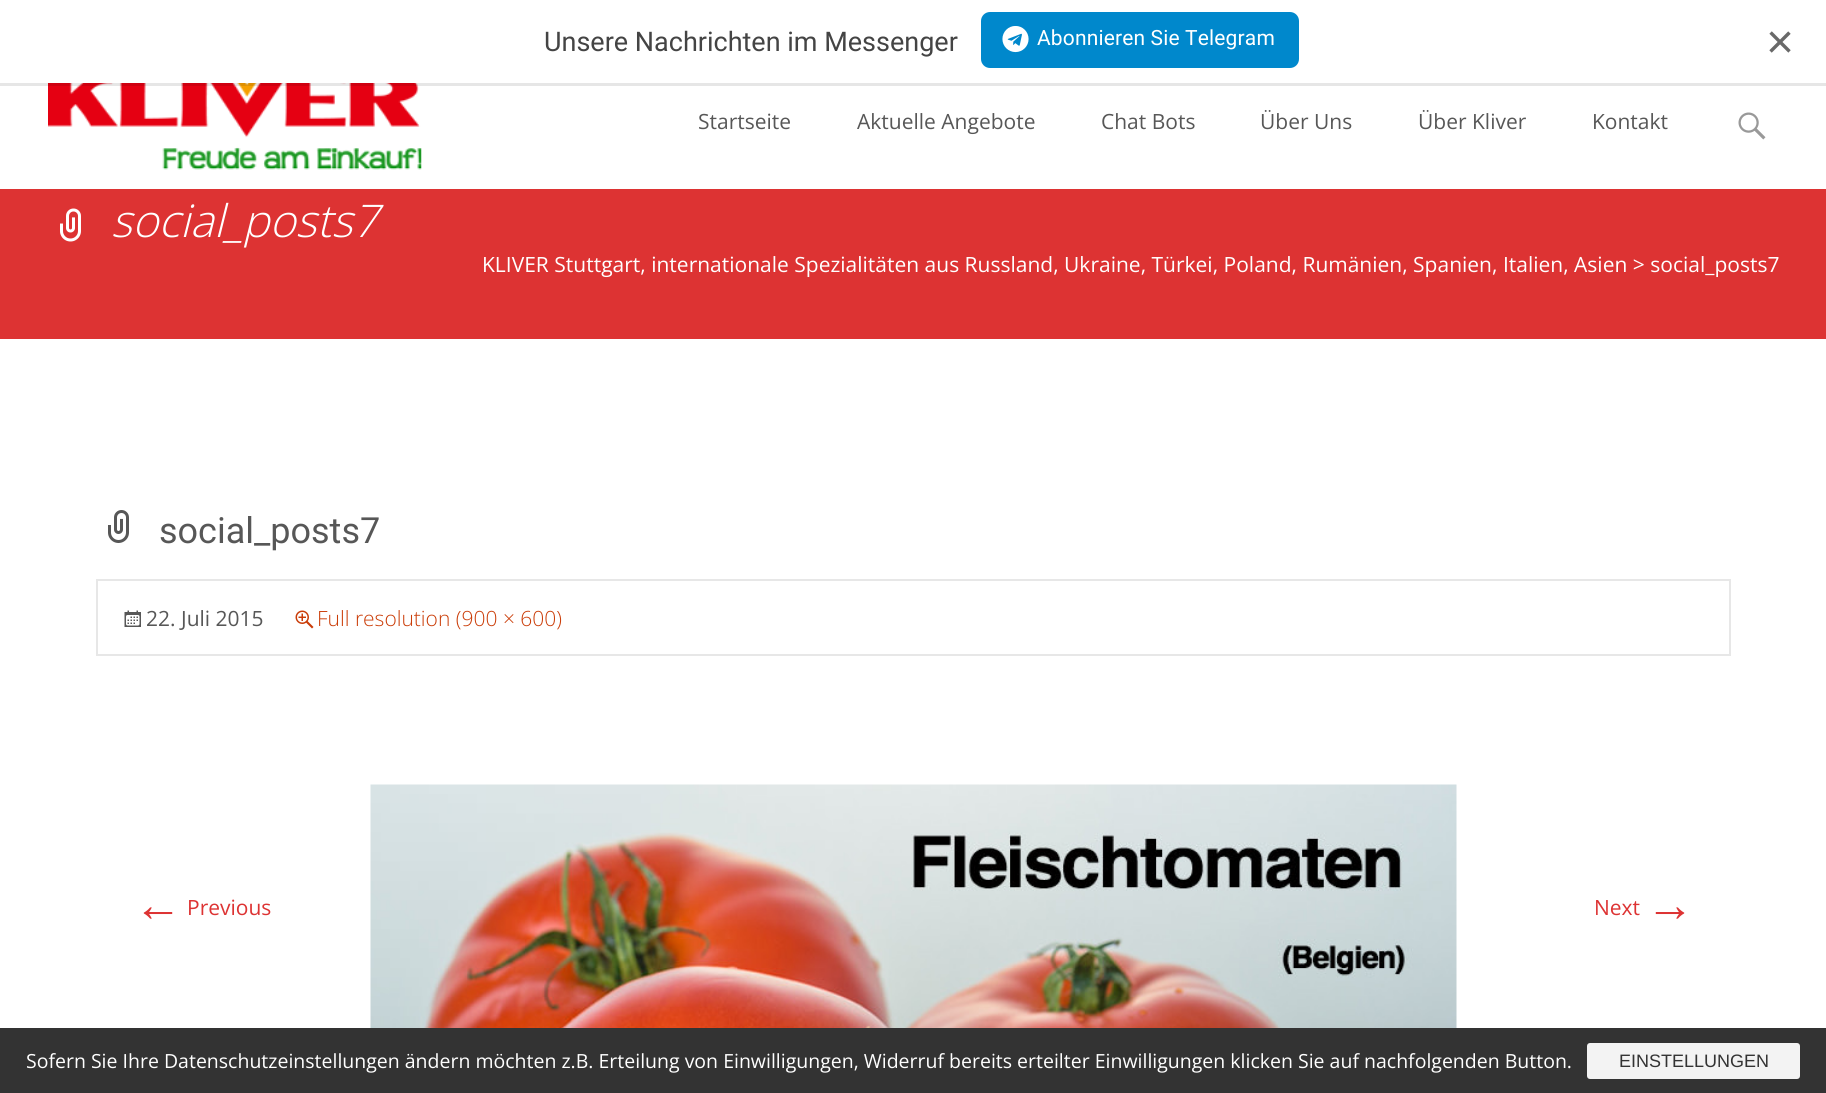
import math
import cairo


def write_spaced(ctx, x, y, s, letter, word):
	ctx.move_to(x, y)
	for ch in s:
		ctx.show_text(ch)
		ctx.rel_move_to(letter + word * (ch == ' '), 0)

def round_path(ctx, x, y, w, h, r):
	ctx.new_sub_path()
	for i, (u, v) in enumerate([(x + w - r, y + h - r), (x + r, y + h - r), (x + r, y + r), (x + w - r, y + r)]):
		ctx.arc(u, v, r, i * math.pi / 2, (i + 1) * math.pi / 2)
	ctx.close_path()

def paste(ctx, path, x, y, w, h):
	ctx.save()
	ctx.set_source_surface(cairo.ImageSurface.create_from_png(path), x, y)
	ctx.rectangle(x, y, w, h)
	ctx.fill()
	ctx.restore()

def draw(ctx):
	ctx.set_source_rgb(1, 1, 1)
	ctx.paint()
	paste(ctx, 'media/2.png', 48, 83, 374, 87)
	ctx.set_source_rgba(0, 0, 0, 0.1)
	ctx.rectangle(0, 83, 1826, 3)
	ctx.fill()
	ctx.select_font_face('Roboto')
	ctx.set_font_size(27)
	ctx.set_source_rgb(0.267, 0.267, 0.267)
	ctx.move_to(544, 51)
	ctx.show_text('Unsere Nachrichten im Messenger')
	ctx.set_source_rgb(0, 0.533, 0.8)
	round_path(ctx, 981, 12, 318, 56, 9)
	ctx.fill()
	paste(ctx, 'media/1.png', 1002, 26, 27, 27)
	ctx.set_font_size(21)
	ctx.set_source_rgb(1, 1, 1)
	write_spaced(ctx, 1037, 45, 'Abonnieren Sie Telegram', 0.15, 0)
	ctx.select_font_face('Liberation Sans')
	ctx.set_font_size(48)
	ctx.set_source_rgb(0.412, 0.412, 0.412)
	ctx.move_to(1766, 58)
	ctx.show_text('×')
	ctx.select_font_face('Open Sans')
	ctx.set_font_size(21)
	ctx.set_source_rgb(0.341, 0.341, 0.341)
	for x, y, s in [
		(698, 129, 'Startseite'),
		(857, 129, 'Aktuelle Angebote'),
		(1101, 129, 'Chat Bots'),
		(1260, 129, 'Über Uns'),
		(1418, 129, 'Über Kliver'),
		(1592, 129, 'Kontakt'),
	]:
		ctx.move_to(x, y)
		ctx.show_text(s)
	paste(ctx, 'media/3.png', 1738, 112, 28, 28)
	ctx.set_source_rgb(0.867, 0.2, 0.2)
	ctx.rectangle(0, 189, 1826, 150)
	ctx.fill()
	paste(ctx, 'media/4.png', 60, 208, 21, 34)
	ctx.select_font_face('Open Sans Light', cairo.FONT_SLANT_ITALIC)
	ctx.set_font_size(45)
	ctx.set_source_rgb(1, 1, 1)
	ctx.move_to(111, 237)
	ctx.show_text('social_posts7')
	ctx.select_font_face('Open Sans')
	ctx.set_font_size(21)
	ctx.move_to(482, 272)
	ctx.show_text('KLIVER Stuttgart, internationale Spezialitäten aus Russland, Ukraine, Türkei, Poland, Rumänien, Spanien, Italien, Asien > social_posts7')
	paste(ctx, 'media/5.png', 108, 510, 21, 33)
	ctx.select_font_face('Roboto')
	ctx.set_font_size(36)
	ctx.set_source_rgb(0.341, 0.341, 0.341)
	ctx.move_to(159, 543)
	ctx.show_text('social_posts7')
	ctx.rectangle(97, 580, 1633, 75)
	ctx.set_source_rgb(0.906, 0.906, 0.906)
	ctx.stroke()
	paste(ctx, 'media/6.png', 124, 610, 17, 17)
	ctx.select_font_face('Open Sans')
	ctx.set_font_size(21)
	ctx.set_source_rgb(0.341, 0.341, 0.341)
	ctx.move_to(146, 626)
	ctx.show_text('22. Juli 2015')
	paste(ctx, 'media/7.png', 295, 610, 19, 19)
	ctx.select_font_face('Open Sans Light')
	ctx.set_source_rgb(0.792, 0.235, 0.031)
	ctx.move_to(317, 626)
	ctx.show_text('Full resolution (900 × 600)')
	paste(ctx, 'media/8.png', 370, 784, 1087, 244)
	ctx.select_font_face('Liberation Sans')
	ctx.set_font_size(48)
	ctx.set_source_rgb(0.867, 0.2, 0.2)
	ctx.move_to(134, 921)
	ctx.show_text('←')
	ctx.select_font_face('Open Sans')
	ctx.set_font_size(21)
	ctx.move_to(187, 915)
	ctx.show_text('Previous')
	ctx.move_to(1594, 915)
	ctx.show_text('Next')
	ctx.select_font_face('Liberation Sans')
	ctx.set_font_size(48)
	ctx.move_to(1646, 921)
	ctx.show_text('→')
	ctx.set_source_rgb(0.2, 0.2, 0.2)
	ctx.rectangle(0, 1028, 1826, 65)
	ctx.fill()
	ctx.select_font_face('Open Sans')
	ctx.set_font_size(19.5)
	ctx.set_source_rgb(1, 1, 1)
	ctx.move_to(26, 1068)
	ctx.show_text('Sofern Sie Ihre Datenschutzeinstellungen ändern möchten z.B. Erteilung von Einwilligungen, Widerruf bereits erteilter Einwilligungen klicken Sie auf nachfolgenden Button.')
	ctx.set_source_rgb(0.953, 0.953, 0.953)
	round_path(ctx, 1588, 1044, 211, 34, 2)
	ctx.fill_preserve()
	ctx.stroke()
	ctx.select_font_face('Liberation Sans')
	ctx.set_font_size(18)
	ctx.set_source_rgb(0.2, 0.2, 0.2)
	ctx.move_to(1619, 1067)
	ctx.show_text('EINSTELLUNGEN')


surface = cairo.ImageSurface(cairo.FORMAT_RGB24, 1826, 1093)
ctx = cairo.Context(surface)
options = cairo.FontOptions()
options.set_hint_metrics(cairo.HINT_METRICS_OFF)
options.set_hint_style(cairo.HINT_STYLE_NONE)
ctx.set_font_options(options)
ctx.set_miter_limit(4)
draw(ctx)
surface.write_to_png('image.png')
